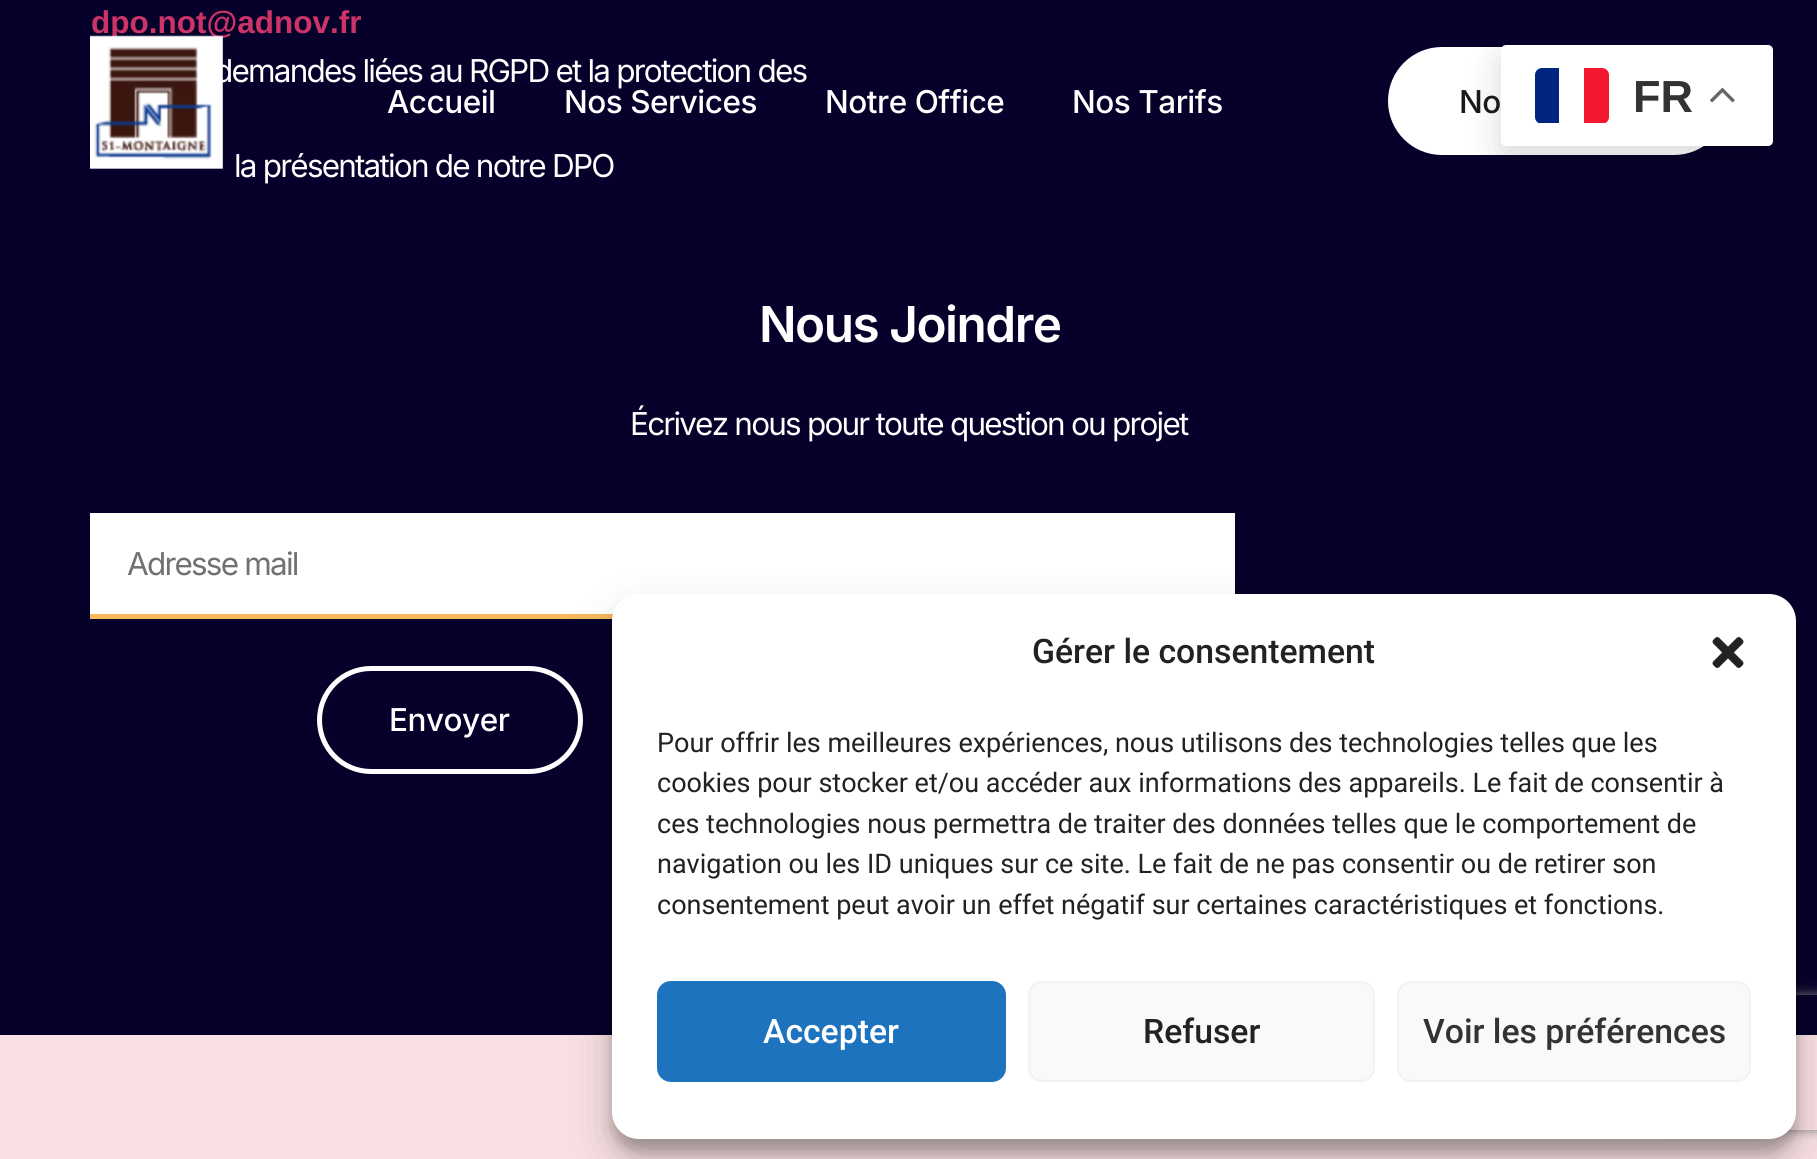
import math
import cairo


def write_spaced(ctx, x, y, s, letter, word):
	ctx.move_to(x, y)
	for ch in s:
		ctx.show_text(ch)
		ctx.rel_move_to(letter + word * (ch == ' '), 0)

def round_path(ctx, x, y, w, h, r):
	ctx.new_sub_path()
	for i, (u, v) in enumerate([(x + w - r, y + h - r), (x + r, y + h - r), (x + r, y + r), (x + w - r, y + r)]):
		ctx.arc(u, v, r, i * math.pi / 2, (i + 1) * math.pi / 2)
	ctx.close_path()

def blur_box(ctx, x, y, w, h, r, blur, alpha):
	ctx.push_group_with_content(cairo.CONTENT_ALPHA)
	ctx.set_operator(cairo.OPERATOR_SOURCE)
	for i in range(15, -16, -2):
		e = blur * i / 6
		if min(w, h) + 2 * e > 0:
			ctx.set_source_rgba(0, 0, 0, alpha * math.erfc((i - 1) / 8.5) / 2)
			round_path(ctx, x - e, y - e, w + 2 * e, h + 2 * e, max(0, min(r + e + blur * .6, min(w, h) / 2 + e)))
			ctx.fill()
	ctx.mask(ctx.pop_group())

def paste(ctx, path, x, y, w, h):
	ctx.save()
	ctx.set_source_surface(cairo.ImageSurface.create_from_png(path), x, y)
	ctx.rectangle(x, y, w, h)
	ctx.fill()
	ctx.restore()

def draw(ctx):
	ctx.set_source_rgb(0.976, 0.878, 0.886)
	ctx.paint()
	ctx.set_source_rgb(0.024, 0.004, 0.165)
	ctx.rectangle(0, 0, 1817, 1035)
	ctx.fill()
	ctx.select_font_face('Liberation Sans', cairo.FONT_SLANT_NORMAL, cairo.FONT_WEIGHT_BOLD)
	ctx.set_font_size(31.5)
	ctx.set_source_rgb(0.8, 0.2, 0.4)
	ctx.move_to(91, 33)
	ctx.show_text('dpo.not@adnov.fr')
	ctx.select_font_face('Inter')
	ctx.set_source_rgb(1, 1, 1)
	write_spaced(ctx, 214, 82, 'demandes liées au RGPD et la protection des', -1.8, 0)
	write_spaced(ctx, 234, 177, 'la présentation de notre DPO', -1.8, 0)
	ctx.select_font_face('Inter SemiBold')
	ctx.set_font_size(49.5)
	write_spaced(ctx, 759, 342, 'Nous Joindre', -1.5, 0)
	ctx.select_font_face('Inter')
	ctx.set_font_size(31.5)
	write_spaced(ctx, 630, 435, 'Écrivez nous pour toute question ou projet', -1.8, 0)
	ctx.rectangle(90, 513, 1145, 101)
	ctx.fill()
	ctx.set_source_rgb(0.961, 0.722, 0.345)
	ctx.rectangle(90, 614, 523, 5)
	ctx.fill()
	ctx.set_source_rgb(0.443, 0.443, 0.443)
	write_spaced(ctx, 127, 575, 'Adresse mail', -1.8, 0)
	round_path(ctx, 319.5, 668.5, 261, 103, 51.5)
	ctx.set_source_rgb(1, 1, 1)
	ctx.set_line_width(5)
	ctx.stroke()
	ctx.select_font_face('Inter Medium')
	write_spaced(ctx, 389, 731, 'Envoyer', -0.5, 0)
	ctx.save()
	ctx.set_fill_rule(cairo.FILL_RULE_EVEN_ODD)
	ctx.new_path()
	ctx.move_to(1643, 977)
	ctx.line_to(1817, 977)
	ctx.line_to(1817, 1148)
	ctx.line_to(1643, 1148)
	ctx.close_path()
	ctx.move_to(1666, 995)
	ctx.line_to(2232, 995)
	ctx.curve_to(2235, 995, 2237, 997, 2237, 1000)
	ctx.line_to(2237, 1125)
	ctx.curve_to(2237, 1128, 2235, 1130, 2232, 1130)
	ctx.line_to(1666, 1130)
	ctx.curve_to(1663, 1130, 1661, 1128, 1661, 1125)
	ctx.line_to(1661, 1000)
	ctx.curve_to(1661, 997, 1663, 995, 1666, 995)
	ctx.close_path()
	ctx.clip()
	ctx.set_source_rgb(0.502, 0.502, 0.502)
	blur_box(ctx, 1661, 995, 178, 135, 5, 5.5, 1)
	ctx.restore()
	round_path(ctx, 1390.5, 49.5, 335, 103, 51.5)
	ctx.fill_preserve()
	ctx.stroke()
	ctx.set_source_rgb(0, 0, 0)
	blur_box(ctx, 1501, 56, 272, 102, 5, 17, 0.15)
	ctx.set_source_rgb(1, 1, 1)
	round_path(ctx, 1501, 45, 272, 101, 5)
	ctx.fill()
	ctx.save()
	round_path(ctx, 1535, 68, 74, 56, 7)
	ctx.clip()
	ctx.set_source_rgb(0, 0.149, 0.498)
	ctx.new_path()
	ctx.move_to(1542, 68)
	ctx.line_to(1559, 68)
	ctx.line_to(1559, 123)
	ctx.line_to(1535, 123)
	ctx.line_to(1535, 75)
	ctx.curve_to(1535, 71, 1538, 68, 1542, 68)
	ctx.close_path()
	ctx.fill()
	ctx.set_source_rgb(0.953, 0.094, 0.188)
	ctx.new_path()
	ctx.move_to(1584, 68)
	ctx.line_to(1602, 68)
	ctx.curve_to(1606, 68, 1609, 71, 1609, 75)
	ctx.line_to(1609, 123)
	ctx.line_to(1584, 123)
	ctx.close_path()
	ctx.fill()
	ctx.restore()
	ctx.select_font_face('Liberation Sans', cairo.FONT_SLANT_NORMAL, cairo.FONT_WEIGHT_BOLD)
	ctx.set_font_size(45)
	ctx.set_source_rgb(0.2, 0.2, 0.2)
	ctx.move_to(1633, 112)
	ctx.show_text('FR')
	paste(ctx, 'media/1.png', 1710, 87, 25, 16)
	paste(ctx, 'media/2.png', 90, 35, 133, 134)
	ctx.select_font_face('Inter Medium')
	ctx.set_font_size(31.5)
	ctx.set_source_rgb(1, 1, 1)
	for x, y, s in [
		(387, 113, 'Accueil'),
		(564, 113, 'Nos Services'),
		(825, 113, 'Notre Office'),
		(1072, 113, 'Nos Tarifs'),
	]:
		write_spaced(ctx, x, y, s, -0.5, 0)
	ctx.set_source_rgb(0.102, 0.102, 0.102)
	write_spaced(ctx, 1459, 113, 'No', -0.5, 0)
	ctx.set_source_rgb(0, 0, 0)
	blur_box(ctx, 612, 608, 1184, 544, 27, 7, 0.23)
	blur_box(ctx, 612, 617, 1184, 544, 27, 22.5, 0.19)
	ctx.set_source_rgb(1, 1, 1)
	round_path(ctx, 612, 594, 1184, 545, 27)
	ctx.fill()
	ctx.select_font_face('Roboto Medium')
	ctx.set_font_size(33.75)
	ctx.set_source_rgb(0.133, 0.133, 0.133)
	ctx.move_to(1032, 663)
	ctx.show_text('Gérer le consentement')
	paste(ctx, 'media/3.png', 1712, 637, 32, 31)
	ctx.select_font_face('Roboto')
	ctx.set_font_size(27)
	for x, y, s in [
		(657, 752, 'Pour offrir les meilleures expériences, nous utilisons des technologies telles que les'),
		(657, 792, 'cookies pour stocker et/ou accéder aux informations des appareils. Le fait de consentir à'),
		(657, 833, 'ces technologies nous permettra de traiter des données telles que le comportement de'),
		(657, 873, 'navigation ou les ID uniques sur ce site. Le fait de ne pas consentir ou de retirer son'),
		(657, 914, 'consentement peut avoir un effet négatif sur certaines caractéristiques et fonctions.'),
	]:
		ctx.move_to(x, y)
		ctx.show_text(s)
	ctx.set_source_rgb(0.118, 0.451, 0.745)
	round_path(ctx, 658, 982, 347, 99, 13)
	ctx.fill_preserve()
	ctx.set_line_width(2)
	ctx.stroke()
	ctx.select_font_face('Roboto Medium')
	ctx.set_font_size(33.75)
	ctx.set_source_rgb(1, 1, 1)
	ctx.move_to(763, 1043)
	ctx.show_text('Accepter')
	ctx.set_source_rgb(0.976, 0.976, 0.976)
	round_path(ctx, 1029, 982, 345, 99, 13)
	ctx.fill_preserve()
	ctx.set_source_rgb(0.949, 0.949, 0.949)
	ctx.stroke()
	ctx.set_source_rgb(0.133, 0.133, 0.133)
	ctx.move_to(1143, 1043)
	ctx.show_text('Refuser')
	ctx.set_source_rgb(0.976, 0.976, 0.976)
	round_path(ctx, 1398, 982, 352, 99, 13)
	ctx.fill_preserve()
	ctx.set_source_rgb(0.949, 0.949, 0.949)
	ctx.stroke()
	ctx.set_source_rgb(0.2, 0.2, 0.2)
	ctx.move_to(1423, 1043)
	ctx.show_text('Voir les préférences')


surface = cairo.ImageSurface(cairo.FORMAT_RGB24, 1817, 1159)
ctx = cairo.Context(surface)
options = cairo.FontOptions()
options.set_hint_metrics(cairo.HINT_METRICS_OFF)
options.set_hint_style(cairo.HINT_STYLE_NONE)
ctx.set_font_options(options)
ctx.set_miter_limit(4)
draw(ctx)
surface.write_to_png('image.png')
